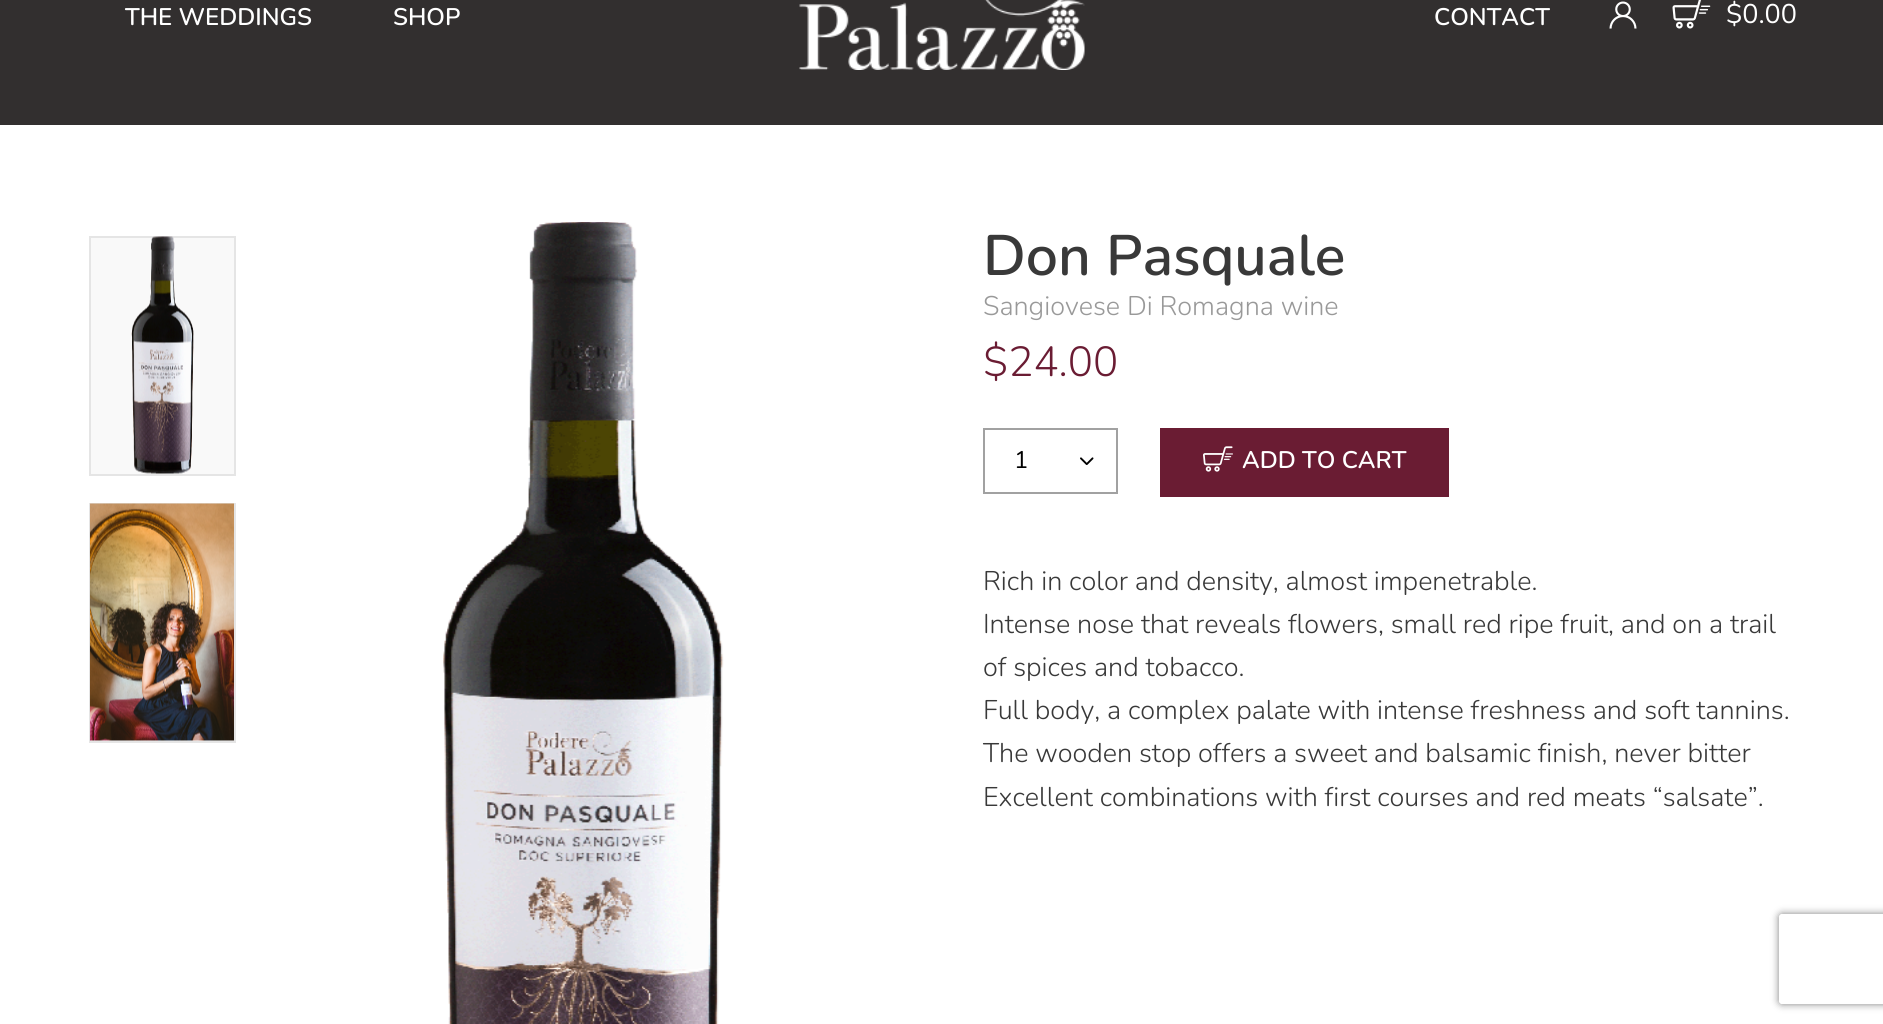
import math
import cairo


def round_path(ctx, x, y, w, h, r):
	ctx.new_sub_path()
	for i, (u, v) in enumerate([(x + w - r, y + h - r), (x + r, y + h - r), (x + r, y + r), (x + w - r, y + r)]):
		ctx.arc(u, v, r, i * math.pi / 2, (i + 1) * math.pi / 2)
	ctx.close_path()

def blur_box(ctx, x, y, w, h, r, blur, alpha):
	ctx.push_group_with_content(cairo.CONTENT_ALPHA)
	ctx.set_operator(cairo.OPERATOR_SOURCE)
	for i in range(15, -16, -2):
		e = blur * i / 6
		if min(w, h) + 2 * e > 0:
			ctx.set_source_rgba(0, 0, 0, alpha * math.erfc((i - 1) / 8.5) / 2)
			round_path(ctx, x - e, y - e, w + 2 * e, h + 2 * e, max(0, min(r + e + blur * .6, min(w, h) / 2 + e)))
			ctx.fill()
	ctx.mask(ctx.pop_group())

def paste(ctx, path, x, y, w, h):
	ctx.save()
	ctx.set_source_surface(cairo.ImageSurface.create_from_png(path), x, y)
	ctx.rectangle(x, y, w, h)
	ctx.fill()
	ctx.restore()

def draw(ctx):
	ctx.set_source_rgb(1, 1, 1)
	ctx.paint()
	ctx.set_source_rgb(0.196, 0.184, 0.184)
	ctx.rectangle(0, 0, 1883, 125)
	ctx.fill()
	ctx.select_font_face('Nunito SemiBold')
	ctx.set_font_size(24)
	ctx.set_source_rgb(1, 1, 1)
	ctx.move_to(125, 25)
	ctx.show_text('THE WEDDINGS')
	ctx.move_to(393, 25)
	ctx.show_text('SHOP')
	paste(ctx, 'media/1.png', 799, 0, 286, 70)
	ctx.move_to(1434, 25)
	ctx.show_text('CONTACT')
	paste(ctx, 'media/2.png', 1609, 1, 28, 28)
	paste(ctx, 'media/3.png', 1672, 0, 39, 29)
	ctx.select_font_face('Nunito')
	ctx.set_font_size(27)
	ctx.move_to(1726, 23)
	ctx.show_text('$0.00')
	ctx.set_source_rgb(0.973, 0.973, 0.973)
	ctx.rectangle(90, 237, 145, 238)
	ctx.fill_preserve()
	ctx.set_source_rgb(0.898, 0.898, 0.898)
	ctx.stroke()
	paste(ctx, 'media/4.png', 131, 236, 63, 238)
	ctx.set_source_rgb(0.973, 0.973, 0.973)
	ctx.rectangle(91, 740, 143, 1)
	ctx.fill()
	ctx.rectangle(90, 504, 145, 238)
	ctx.set_source_rgb(0.898, 0.898, 0.898)
	ctx.stroke()
	paste(ctx, 'media/5.png', 90, 503, 144, 238)
	paste(ctx, 'media/6.png', 443, 222, 281, 802)
	ctx.select_font_face('Nunito SemiBold')
	ctx.set_font_size(57)
	ctx.set_source_rgb(0.224, 0.224, 0.224)
	ctx.move_to(983, 275)
	ctx.show_text('Don Pasquale')
	ctx.select_font_face('Nunito Light')
	ctx.set_font_size(27)
	ctx.set_source_rgb(0.6, 0.6, 0.6)
	ctx.move_to(983, 315)
	ctx.show_text('Sangiovese Di Romagna wine')
	ctx.set_font_size(42)
	ctx.set_source_rgb(0.416, 0.11, 0.2)
	ctx.move_to(983, 376)
	ctx.show_text('$24.00')
	paste(ctx, 'media/7.png', 1080, 457, 14, 8)
	ctx.rectangle(984, 429, 133, 64)
	ctx.set_source_rgb(0.631, 0.631, 0.631)
	ctx.stroke()
	ctx.select_font_face('Nunito')
	ctx.set_font_size(24)
	ctx.set_source_rgb(0, 0, 0)
	ctx.move_to(1014, 468)
	ctx.show_text('1')
	ctx.set_source_rgb(0.416, 0.11, 0.2)
	ctx.rectangle(1160, 428, 289, 69)
	ctx.fill()
	paste(ctx, 'media/8.png', 1203, 446, 30, 26)
	ctx.select_font_face('Nunito SemiBold')
	ctx.set_source_rgb(1, 1, 1)
	ctx.move_to(1242, 468)
	ctx.show_text('ADD TO CART')
	ctx.select_font_face('Nunito Light')
	ctx.set_font_size(27)
	ctx.set_source_rgb(0.224, 0.224, 0.224)
	for x, y, s in [
		(983, 590, 'Rich in color and density, almost impenetrable.'),
		(983, 633, 'Intense nose that reveals flowers, small red ripe fruit, and on a trail'),
		(983, 676, 'of spices and tobacco.'),
		(983, 719, 'Full body, a complex palate with intense freshness and soft tannins.'),
		(983, 762, 'The wooden stop offers a sweet and balsamic finish, never bitter'),
		(983, 806, 'Excellent combinations with first courses and red meats “salsate”.'),
	]:
		ctx.move_to(x, y)
		ctx.show_text(s)
	ctx.save()
	ctx.set_fill_rule(cairo.FILL_RULE_EVEN_ODD)
	ctx.new_path()
	ctx.move_to(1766, 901)
	ctx.line_to(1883, 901)
	ctx.line_to(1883, 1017)
	ctx.line_to(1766, 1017)
	ctx.close_path()
	ctx.move_to(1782, 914)
	ctx.line_to(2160, 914)
	ctx.curve_to(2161.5, 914, 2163, 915.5, 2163, 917)
	ctx.line_to(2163, 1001)
	ctx.curve_to(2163, 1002.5, 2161.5, 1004, 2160, 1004)
	ctx.line_to(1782, 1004)
	ctx.curve_to(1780.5, 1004, 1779, 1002.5, 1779, 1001)
	ctx.line_to(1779, 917)
	ctx.curve_to(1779, 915.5, 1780.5, 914, 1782, 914)
	ctx.close_path()
	ctx.clip()
	ctx.set_source_rgb(0.502, 0.502, 0.502)
	blur_box(ctx, 1779, 914, 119, 90, 3, 4, 1)
	ctx.restore()


surface = cairo.ImageSurface(cairo.FORMAT_RGB24, 1883, 1024)
ctx = cairo.Context(surface)
options = cairo.FontOptions()
options.set_hint_metrics(cairo.HINT_METRICS_OFF)
options.set_hint_style(cairo.HINT_STYLE_NONE)
ctx.set_font_options(options)
ctx.set_miter_limit(4)
draw(ctx)
surface.write_to_png('image.png')
